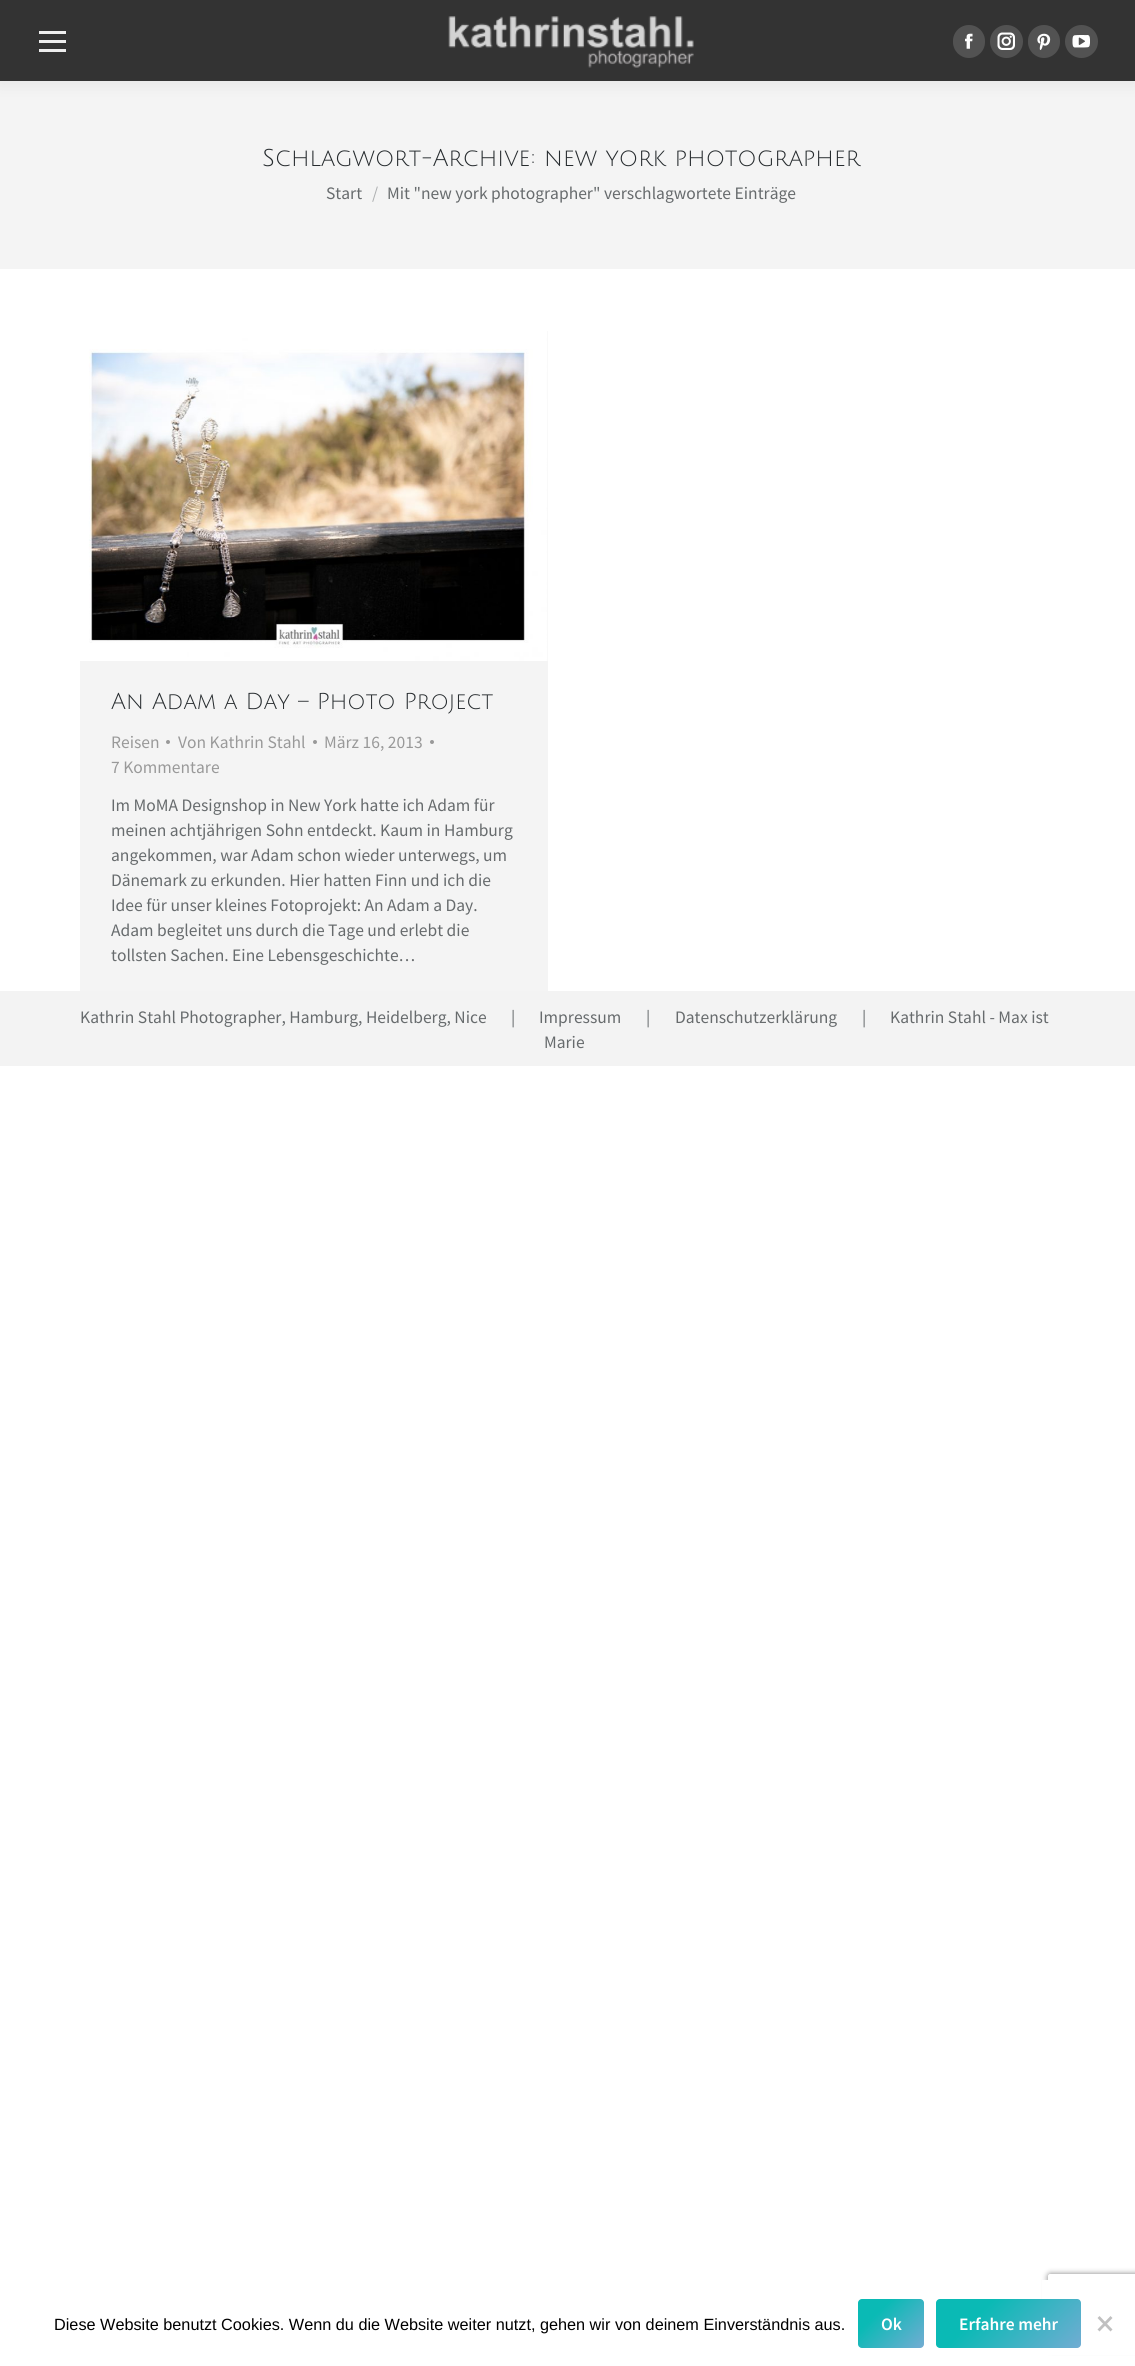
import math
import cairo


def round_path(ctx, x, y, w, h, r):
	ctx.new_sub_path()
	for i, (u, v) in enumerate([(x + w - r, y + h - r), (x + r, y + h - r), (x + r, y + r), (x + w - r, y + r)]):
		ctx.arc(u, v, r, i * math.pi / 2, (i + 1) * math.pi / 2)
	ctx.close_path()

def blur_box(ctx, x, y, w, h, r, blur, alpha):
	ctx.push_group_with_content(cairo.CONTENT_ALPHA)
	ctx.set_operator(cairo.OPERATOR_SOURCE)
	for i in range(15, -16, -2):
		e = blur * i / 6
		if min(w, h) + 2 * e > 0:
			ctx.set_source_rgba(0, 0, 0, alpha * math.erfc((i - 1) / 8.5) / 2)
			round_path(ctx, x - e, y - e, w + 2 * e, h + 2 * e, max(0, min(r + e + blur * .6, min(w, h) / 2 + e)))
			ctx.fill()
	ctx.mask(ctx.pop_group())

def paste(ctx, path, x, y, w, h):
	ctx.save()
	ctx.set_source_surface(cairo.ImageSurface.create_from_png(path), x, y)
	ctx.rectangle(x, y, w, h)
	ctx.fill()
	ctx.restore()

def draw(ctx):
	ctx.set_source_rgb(1, 1, 1)
	ctx.paint()
	ctx.set_source_rgb(0.957, 0.957, 0.957)
	ctx.rectangle(0, 81, 1135, 188)
	ctx.fill()
	ctx.set_source_rgb(0, 0, 0)
	blur_box(ctx, -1, -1, 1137, 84, 0, 9.5, 0.07)
	ctx.set_source_rgb(0.2, 0.2, 0.2)
	ctx.rectangle(0, 0, 1135, 81)
	ctx.fill()
	ctx.set_source_rgb(0.933, 0.933, 0.933)
	ctx.rectangle(39, 31, 27, 3)
	ctx.rectangle(39, 40, 27, 3)
	ctx.rectangle(39, 49, 27, 3)
	ctx.fill()
	paste(ctx, 'media/1.png', 448, 16, 246, 52)
	ctx.set_source_rgb(0.322, 0.322, 0.322)
	round_path(ctx, 953, 25, 32, 33, 16)
	ctx.fill()
	paste(ctx, 'media/2.png', 965, 33, 8, 16)
	ctx.arc(1006.5, 41.5, 16.5, 0, 2 * math.pi)
	ctx.fill()
	paste(ctx, 'media/3.png', 997, 32, 18, 18)
	round_path(ctx, 1028, 25, 32, 33, 16)
	ctx.fill()
	paste(ctx, 'media/4.png', 1037, 33, 14, 17)
	ctx.arc(1081.5, 41.5, 16.5, 0, 2 * math.pi)
	ctx.fill()
	paste(ctx, 'media/5.png', 1072, 35, 18, 13)
	ctx.select_font_face('Julius Sans One')
	ctx.set_font_size(23.75)
	ctx.set_source_rgb(0.149, 0.169, 0.18)
	ctx.move_to(262, 166)
	ctx.show_text('Schlagwort-Archive: new york photographer')
	ctx.select_font_face('Source Sans Pro')
	ctx.set_font_size(17.5)
	ctx.set_source_rgb(0.404, 0.42, 0.427)
	ctx.move_to(326, 199)
	ctx.show_text('Start')
	ctx.set_source_rgb(0.682, 0.69, 0.694)
	ctx.move_to(372, 199)
	ctx.show_text('/')
	ctx.set_source_rgb(0.404, 0.42, 0.427)
	ctx.move_to(387, 199)
	ctx.show_text('Mit "new york photographer" verschlagwortete Einträge')
	ctx.set_source_rgb(0.957, 0.957, 0.957)
	ctx.rectangle(80, 331, 468, 660)
	ctx.fill()
	paste(ctx, 'media/6.png', 80, 331, 468, 330)
	ctx.select_font_face('Julius Sans One')
	ctx.set_font_size(22.5)
	ctx.set_source_rgb(0.149, 0.169, 0.18)
	ctx.move_to(111, 709)
	ctx.show_text('An Adam a Day – Photo Project')
	ctx.select_font_face('Source Sans Pro')
	ctx.set_font_size(17.5)
	ctx.set_source_rgb(0.6, 0.6, 0.6)
	ctx.move_to(111, 748)
	ctx.show_text('Reisen')
	ctx.new_path()
	ctx.arc(168, 742, 2, 0, 2 * math.pi)
	ctx.fill()
	ctx.move_to(178, 748)
	ctx.show_text('Von Kathrin Stahl')
	ctx.new_path()
	ctx.arc(315, 742, 2, 0, 2 * math.pi)
	ctx.fill()
	ctx.move_to(324, 748)
	ctx.show_text('März 16, 2013')
	ctx.new_path()
	ctx.arc(432, 742, 2, 0, 2 * math.pi)
	ctx.fill()
	ctx.move_to(111, 773)
	ctx.show_text('7 Kommentare')
	ctx.set_source_rgb(0.404, 0.42, 0.427)
	for x, y, s in [
		(111, 811, 'Im MoMA Designshop in New York hatte ich Adam für'),
		(111, 836, 'meinen achtjährigen Sohn entdeckt. Kaum in Hamburg'),
		(111, 861, 'angekommen, war Adam schon wieder unterwegs, um'),
		(111, 886, 'Dänemark zu erkunden. Hier hatten Finn und ich die'),
		(111, 911, 'Idee für unser kleines Fotoprojekt: An Adam a Day.'),
		(111, 936, 'Adam begleitet uns durch die Tage und erlebt die'),
		(111, 961, 'tollsten Sachen. Eine Lebensgeschichte…'),
	]:
		ctx.move_to(x, y)
		ctx.show_text(s)
	ctx.set_source_rgb(0.953, 0.953, 0.953)
	ctx.rectangle(0, 991, 1135, 75)
	ctx.fill()
	ctx.set_source_rgb(0.404, 0.42, 0.427)
	for x, y, s in [
		(80, 1023, 'Kathrin Stahl Photographer, Hamburg, Heidelberg, Nice'),
		(511, 1023, '|'),
		(539, 1023, 'Impressum'),
		(646, 1023, '|'),
		(675, 1023, 'Datenschutzerklärung'),
		(862, 1023, '|'),
		(890, 1023, 'Kathrin Stahl - Max ist'),
		(544, 1048, 'Marie'),
	]:
		ctx.move_to(x, y)
		ctx.show_text(s)
	ctx.save()
	ctx.set_fill_rule(cairo.FILL_RULE_EVEN_ODD)
	ctx.new_path()
	ctx.move_to(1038, 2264)
	ctx.line_to(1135, 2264)
	ctx.line_to(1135, 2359)
	ctx.line_to(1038, 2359)
	ctx.close_path()
	ctx.move_to(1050.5, 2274)
	ctx.line_to(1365.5, 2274)
	ctx.curve_to(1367, 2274, 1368, 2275, 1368, 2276.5)
	ctx.line_to(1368, 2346.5)
	ctx.curve_to(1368, 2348, 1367, 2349, 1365.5, 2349)
	ctx.line_to(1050.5, 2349)
	ctx.curve_to(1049, 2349, 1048, 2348, 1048, 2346.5)
	ctx.line_to(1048, 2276.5)
	ctx.curve_to(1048, 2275, 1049, 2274, 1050.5, 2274)
	ctx.close_path()
	ctx.clip()
	ctx.set_source_rgb(0.502, 0.502, 0.502)
	blur_box(ctx, 1048, 2274, 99, 75, 2.5, 3, 1)
	ctx.restore()
	ctx.set_source_rgb(1, 1, 1)
	ctx.rectangle(1042, 2280, 93, 75)
	ctx.fill()
	ctx.select_font_face('Liberation Sans')
	ctx.set_font_size(16.25)
	ctx.set_source_rgb(0, 0, 0)
	ctx.move_to(54, 2330)
	ctx.show_text('Diese Website benutzt Cookies. Wenn du die Website weiter nutzt, gehen wir von deinem Einverständnis aus.')
	gradient = cairo.LinearGradient(862, 2294, 919, 2352)
	gradient.add_color_stop_rgba(0.3, 0.039, 0.729, 0.71, 1)
	gradient.add_color_stop_rgba(1, 0.447, 0.675, 0.827, 1)
	ctx.set_source(gradient)
	round_path(ctx, 858, 2299, 66, 49, 4)
	ctx.fill()
	ctx.select_font_face('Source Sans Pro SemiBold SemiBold')
	ctx.set_font_size(17.5)
	ctx.set_source_rgb(1, 1, 1)
	ctx.move_to(881, 2330)
	ctx.show_text('Ok')
	gradient = cairo.LinearGradient(960, 2275, 1057, 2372)
	gradient.add_color_stop_rgba(0.3, 0.039, 0.729, 0.71, 1)
	gradient.add_color_stop_rgba(1, 0.447, 0.675, 0.827, 1)
	ctx.set_source(gradient)
	round_path(ctx, 936, 2299, 145, 49, 4)
	ctx.fill()
	ctx.set_source_rgb(1, 1, 1)
	ctx.move_to(959, 2330)
	ctx.show_text('Erfahre mehr')
	ctx.set_source_rgb(0.753, 0.753, 0.753)
	ctx.new_path()
	ctx.move_to(1110.5, 2316)
	ctx.line_to(1112.5, 2318)
	ctx.line_to(1099.5, 2331.5)
	ctx.line_to(1097.5, 2329.5)
	ctx.close_path()
	ctx.fill()
	ctx.new_path()
	ctx.move_to(1097.5, 2318)
	ctx.line_to(1099.5, 2316)
	ctx.line_to(1112.5, 2329.5)
	ctx.line_to(1110.5, 2331.5)
	ctx.close_path()
	ctx.fill()


surface = cairo.ImageSurface(cairo.FORMAT_RGB24, 1135, 2366)
ctx = cairo.Context(surface)
options = cairo.FontOptions()
options.set_hint_metrics(cairo.HINT_METRICS_OFF)
options.set_hint_style(cairo.HINT_STYLE_NONE)
ctx.set_font_options(options)
ctx.set_miter_limit(4)
draw(ctx)
surface.write_to_png('image.png')
